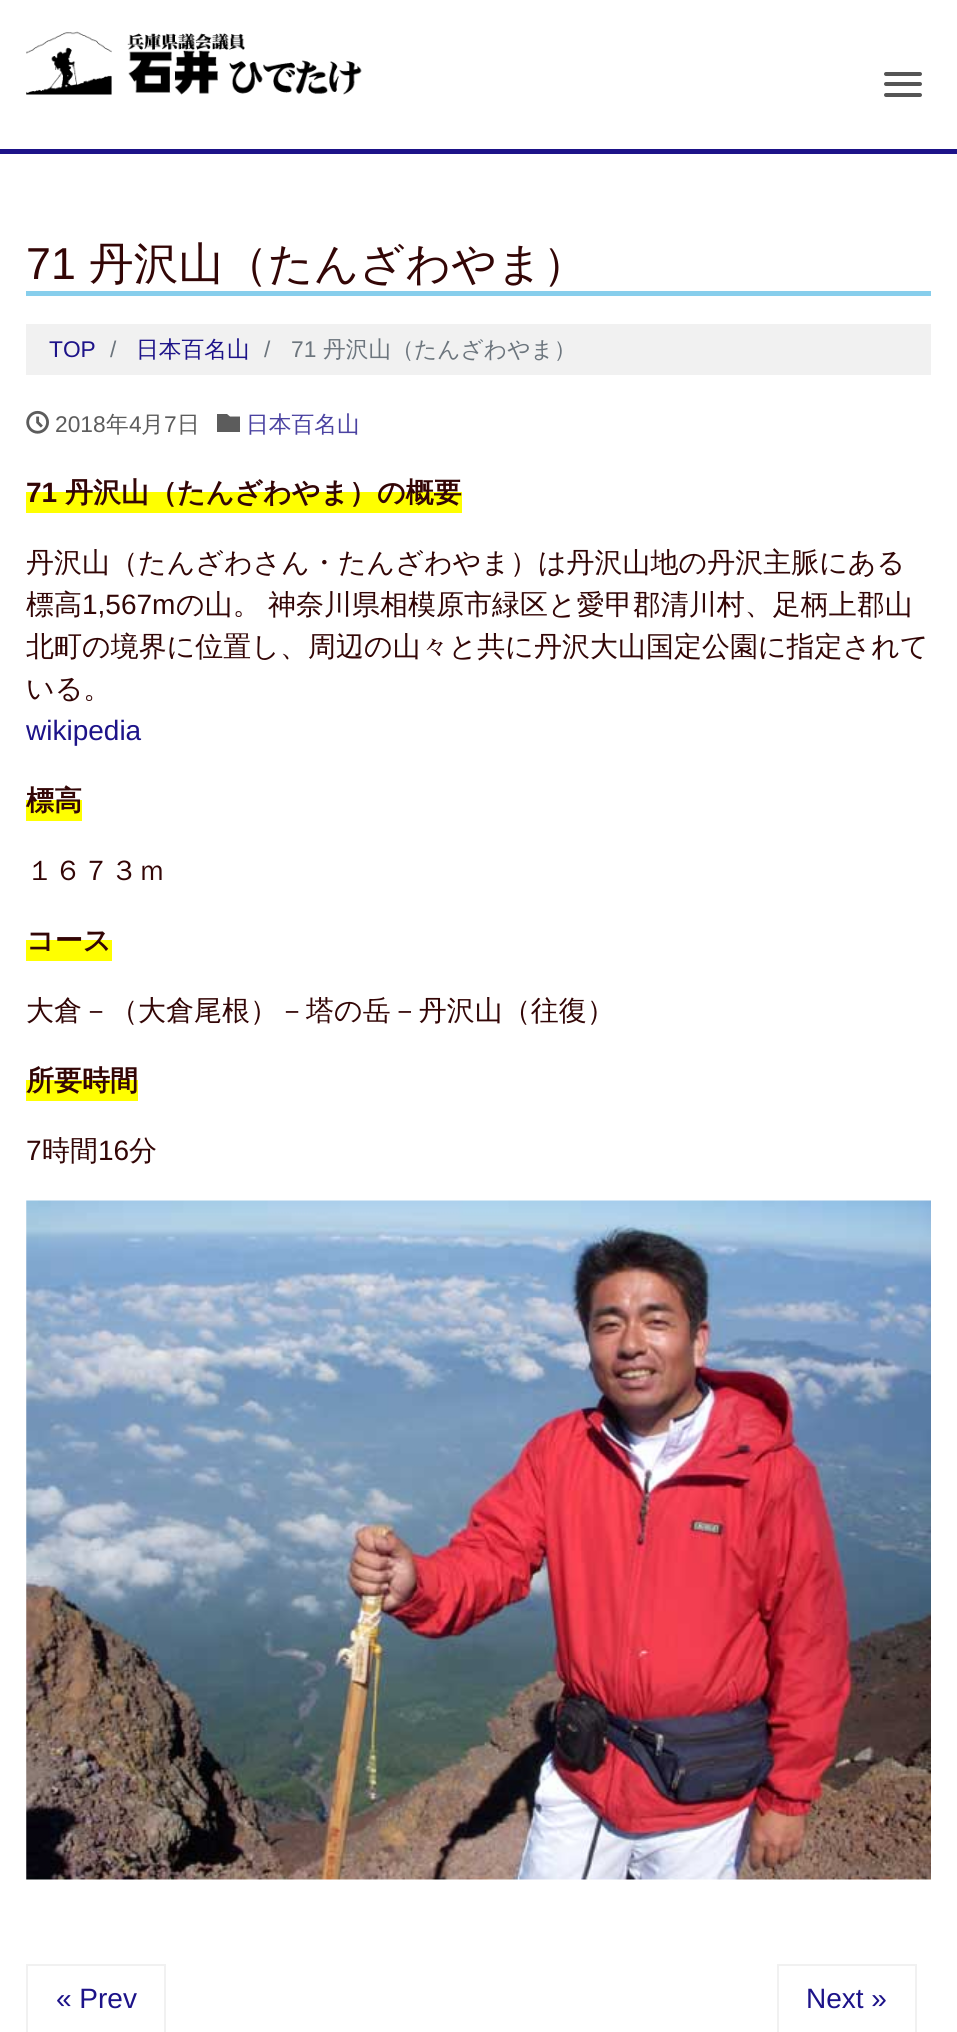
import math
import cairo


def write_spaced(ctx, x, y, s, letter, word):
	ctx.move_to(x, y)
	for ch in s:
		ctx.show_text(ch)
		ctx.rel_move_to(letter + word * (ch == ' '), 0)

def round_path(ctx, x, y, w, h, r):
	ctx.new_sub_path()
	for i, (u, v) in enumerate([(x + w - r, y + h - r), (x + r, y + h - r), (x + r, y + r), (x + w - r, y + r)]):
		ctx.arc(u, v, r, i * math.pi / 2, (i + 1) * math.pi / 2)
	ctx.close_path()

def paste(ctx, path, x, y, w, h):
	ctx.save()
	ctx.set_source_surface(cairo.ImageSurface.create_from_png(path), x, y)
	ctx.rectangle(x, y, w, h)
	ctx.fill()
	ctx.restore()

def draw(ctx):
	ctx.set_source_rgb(1, 1, 1)
	ctx.paint()
	paste(ctx, 'media/1.png', 26, 31, 336, 64)
	ctx.set_source_rgb(0.114, 0.075, 0.537)
	ctx.rectangle(0, 149, 957, 5)
	ctx.fill()
	ctx.set_source_rgb(0.333, 0.333, 0.333)
	round_path(ctx, 884, 72, 38, 4, 2)
	ctx.fill()
	round_path(ctx, 884, 82, 38, 4, 2)
	ctx.fill()
	round_path(ctx, 884, 93, 38, 4, 2)
	ctx.fill()
	ctx.set_source_rgb(0.529, 0.808, 0.922)
	ctx.rectangle(26, 291, 905, 5)
	ctx.fill()
	ctx.select_font_face('Liberation Sans')
	ctx.set_font_size(44.75)
	ctx.set_source_rgb(0.2, 0.024, 0.024)
	ctx.move_to(26, 279)
	ctx.show_text('71')
	ctx.select_font_face('WenQuanYi Zen Hei Medium')
	ctx.move_to(89, 279)
	ctx.show_text('丹沢山（たんざわやま）')
	ctx.set_source_rgb(0.945, 0.945, 0.945)
	ctx.rectangle(26, 324, 905, 51)
	ctx.fill()
	ctx.select_font_face('Liberation Sans')
	ctx.set_font_size(22.75)
	ctx.set_source_rgb(0.114, 0.075, 0.537)
	ctx.move_to(49, 357)
	ctx.show_text('TOP')
	ctx.set_source_rgb(0.424, 0.459, 0.49)
	ctx.move_to(110, 357)
	ctx.show_text('/')
	ctx.select_font_face('WenQuanYi Zen Hei Medium')
	ctx.set_source_rgb(0.114, 0.075, 0.537)
	ctx.move_to(136, 357)
	ctx.show_text('日本百名山')
	ctx.select_font_face('Liberation Sans')
	ctx.set_source_rgb(0.424, 0.459, 0.49)
	ctx.move_to(264, 357)
	ctx.show_text('/')
	ctx.move_to(291, 357)
	ctx.show_text('71')
	ctx.select_font_face('WenQuanYi Zen Hei Medium')
	ctx.move_to(323, 357)
	ctx.show_text('丹沢山（たんざわやま）')
	paste(ctx, 'media/2.png', 26, 410, 23, 24)
	ctx.select_font_face('Liberation Sans')
	ctx.set_source_rgb(0.361, 0.361, 0.361)
	ctx.move_to(55, 432)
	ctx.show_text('2018')
	ctx.select_font_face('WenQuanYi Zen Hei Medium')
	ctx.move_to(106, 432)
	ctx.show_text('年')
	ctx.select_font_face('Liberation Sans')
	ctx.move_to(129, 432)
	ctx.show_text('4')
	ctx.select_font_face('WenQuanYi Zen Hei Medium')
	ctx.move_to(141, 432)
	ctx.show_text('月')
	ctx.select_font_face('Liberation Sans')
	ctx.move_to(164, 432)
	ctx.show_text('7')
	ctx.select_font_face('WenQuanYi Zen Hei Medium')
	ctx.move_to(177, 432)
	ctx.show_text('日')
	ctx.set_source_rgb(0.29, 0.259, 0.631)
	ctx.move_to(246, 432)
	ctx.show_text('日本百名山')
	ctx.set_source_rgb(0.361, 0.361, 0.361)
	ctx.new_path()
	ctx.move_to(227, 414)
	ctx.line_to(230, 416.5)
	ctx.line_to(240, 416.5)
	ctx.line_to(240, 432)
	ctx.line_to(217, 432)
	ctx.line_to(217, 414)
	ctx.close_path()
	ctx.fill()
	ctx.set_source_rgb(1, 1, 0)
	ctx.rectangle(26, 492, 436, 21)
	ctx.fill()
	ctx.select_font_face('Liberation Sans', cairo.FONT_SLANT_NORMAL, cairo.FONT_WEIGHT_BOLD)
	ctx.set_font_size(28)
	ctx.set_source_rgb(0.2, 0.024, 0.024)
	ctx.move_to(26, 502)
	ctx.show_text('71')
	ctx.select_font_face('WenQuanYi Zen Hei', cairo.FONT_SLANT_NORMAL, cairo.FONT_WEIGHT_BOLD)
	ctx.move_to(65, 502)
	ctx.show_text('丹沢山（たんざわやま）の概要')
	ctx.select_font_face('WenQuanYi Zen Hei Medium')
	ctx.move_to(26, 572)
	ctx.show_text('丹沢山（たんざわさん・たんざわやま）は丹沢山地の丹沢主脈にある')
	ctx.move_to(26, 614)
	ctx.show_text('標高')
	ctx.select_font_face('Liberation Sans')
	ctx.move_to(82, 614)
	ctx.show_text('1,567m')
	ctx.select_font_face('WenQuanYi Zen Hei Medium')
	write_spaced(ctx, 176, 614, 'の山。 神奈川県相模原市緑区と愛甲郡清川村、足柄上郡山', 0, -1)
	ctx.move_to(26, 656)
	ctx.show_text('北町の境界に位置し、周辺の山々と共に丹沢大山国定公園に指定されて')
	ctx.move_to(26, 698)
	ctx.show_text('いる。')
	ctx.select_font_face('Liberation Sans')
	ctx.set_source_rgb(0.114, 0.075, 0.537)
	ctx.move_to(26, 740)
	ctx.show_text('wikipedia')
	ctx.set_source_rgb(1, 1, 0)
	ctx.rectangle(26, 800, 56, 21)
	ctx.fill()
	ctx.select_font_face('WenQuanYi Zen Hei', cairo.FONT_SLANT_NORMAL, cairo.FONT_WEIGHT_BOLD)
	ctx.set_source_rgb(0.2, 0.024, 0.024)
	ctx.move_to(26, 810)
	ctx.show_text('標高')
	ctx.select_font_face('WenQuanYi Zen Hei Medium')
	ctx.move_to(26, 880)
	ctx.show_text('１６７３ｍ')
	ctx.set_source_rgb(1, 1, 0)
	ctx.rectangle(26, 940, 86, 21)
	ctx.fill()
	ctx.select_font_face('WenQuanYi Zen Hei', cairo.FONT_SLANT_NORMAL, cairo.FONT_WEIGHT_BOLD)
	ctx.set_source_rgb(0.2, 0.024, 0.024)
	ctx.move_to(26, 950)
	ctx.show_text('コース')
	ctx.select_font_face('WenQuanYi Zen Hei Medium')
	ctx.move_to(26, 1020)
	ctx.show_text('大倉－（大倉尾根）－塔の岳－丹沢山（往復）')
	ctx.set_source_rgb(1, 1, 0)
	ctx.rectangle(26, 1080, 112, 21)
	ctx.fill()
	ctx.select_font_face('WenQuanYi Zen Hei', cairo.FONT_SLANT_NORMAL, cairo.FONT_WEIGHT_BOLD)
	ctx.set_source_rgb(0.2, 0.024, 0.024)
	ctx.move_to(26, 1090)
	ctx.show_text('所要時間')
	ctx.select_font_face('Liberation Sans')
	ctx.move_to(26, 1160)
	ctx.show_text('7')
	ctx.select_font_face('WenQuanYi Zen Hei Medium')
	ctx.move_to(42, 1160)
	ctx.show_text('時間')
	ctx.select_font_face('Liberation Sans')
	ctx.move_to(98, 1160)
	ctx.show_text('16')
	ctx.select_font_face('WenQuanYi Zen Hei Medium')
	ctx.move_to(129, 1160)
	ctx.show_text('分')
	paste(ctx, 'media/3.png', 26, 1200, 905, 680)
	ctx.rectangle(27, 1965, 138, 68)
	ctx.set_source_rgb(0.945, 0.945, 0.945)
	ctx.stroke()
	ctx.select_font_face('Liberation Sans')
	ctx.set_source_rgb(0.114, 0.075, 0.537)
	ctx.move_to(56, 2008)
	ctx.show_text('« Prev')
	ctx.rectangle(778, 1965, 138, 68)
	ctx.set_source_rgb(0.945, 0.945, 0.945)
	ctx.stroke()
	ctx.set_source_rgb(0.114, 0.075, 0.537)
	ctx.move_to(806, 2008)
	ctx.show_text('Next »')


surface = cairo.ImageSurface(cairo.FORMAT_RGB24, 957, 2032)
ctx = cairo.Context(surface)
options = cairo.FontOptions()
options.set_hint_metrics(cairo.HINT_METRICS_OFF)
options.set_hint_style(cairo.HINT_STYLE_NONE)
ctx.set_font_options(options)
ctx.set_miter_limit(4)
draw(ctx)
surface.write_to_png('image.png')
